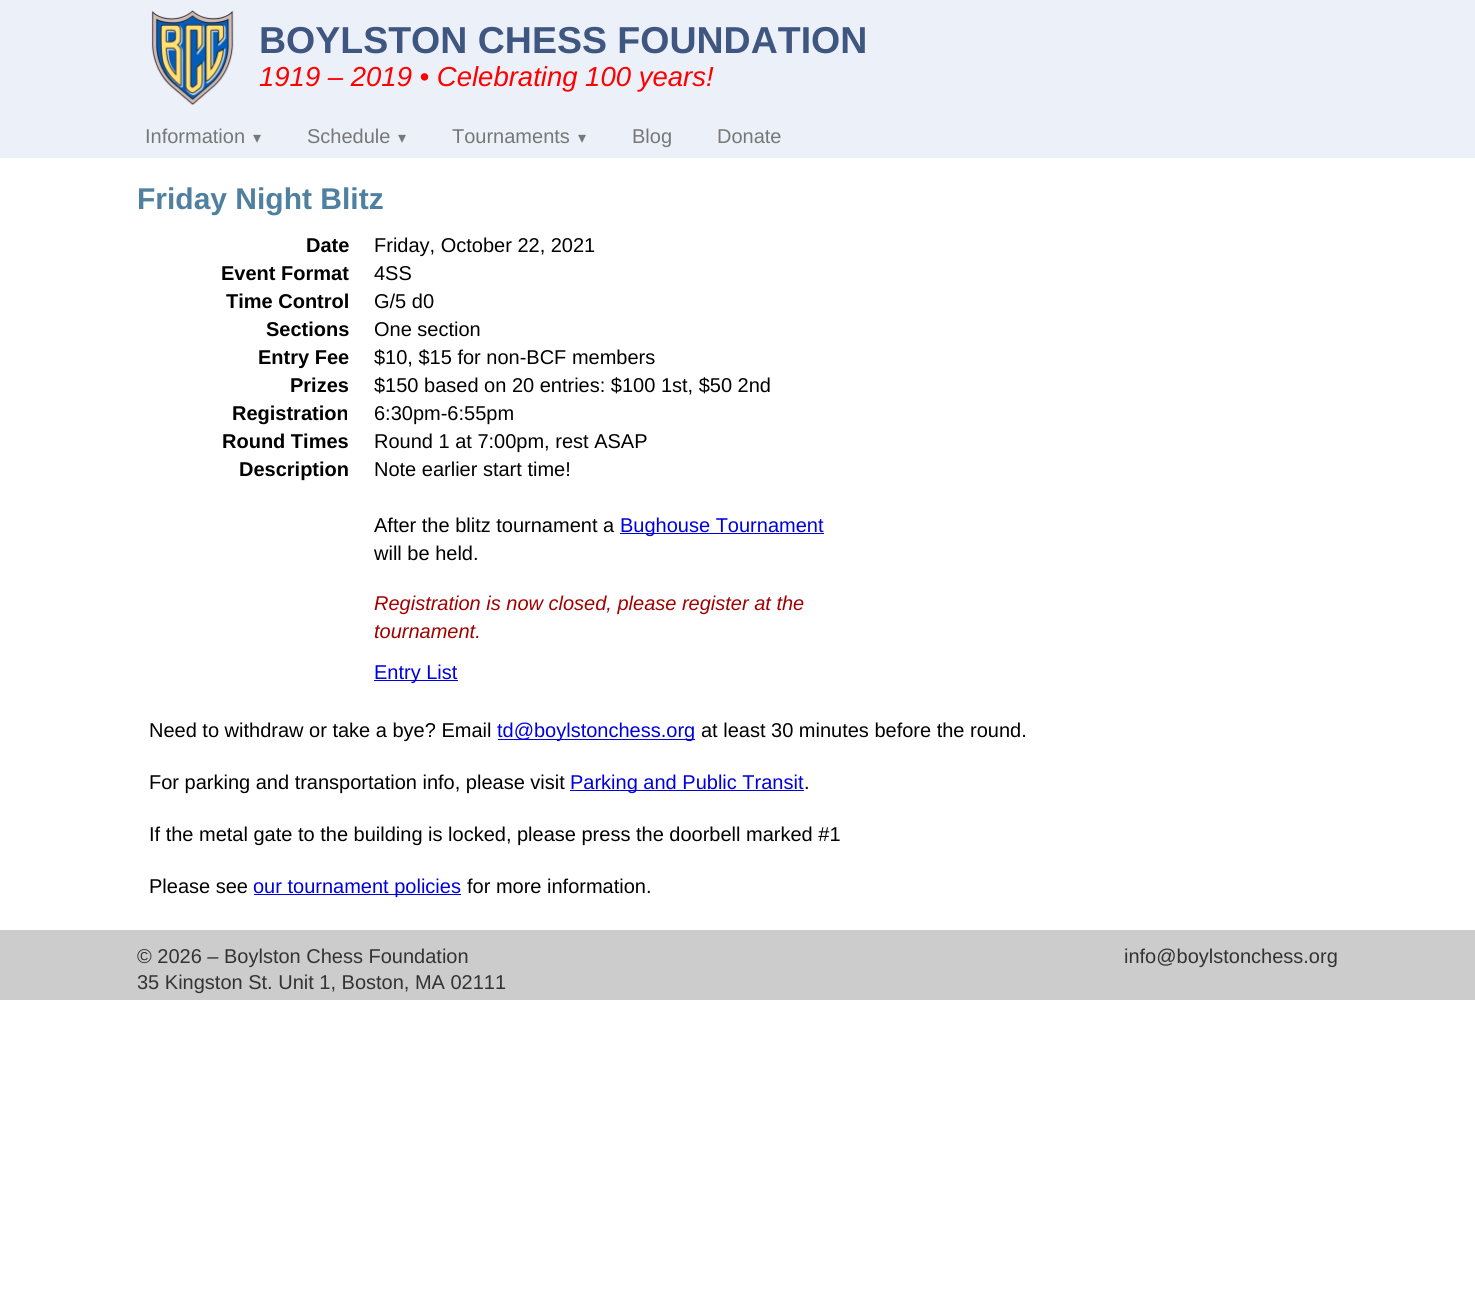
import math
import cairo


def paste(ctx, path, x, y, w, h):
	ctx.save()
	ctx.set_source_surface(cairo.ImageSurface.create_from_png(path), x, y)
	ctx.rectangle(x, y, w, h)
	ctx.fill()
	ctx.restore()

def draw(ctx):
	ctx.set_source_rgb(1, 1, 1)
	ctx.paint()
	ctx.set_source_rgb(0.922, 0.941, 0.969)
	ctx.rectangle(0, 0, 1475, 158)
	ctx.fill()
	paste(ctx, 'media/1.png', 151, 10, 83, 95)
	ctx.select_font_face('Liberation Sans', cairo.FONT_SLANT_NORMAL, cairo.FONT_WEIGHT_BOLD)
	ctx.set_font_size(37.5)
	ctx.set_source_rgb(0.247, 0.337, 0.502)
	ctx.move_to(259, 53)
	ctx.show_text('BOYLSTON CHESS FOUNDATION')
	ctx.select_font_face('Liberation Sans', cairo.FONT_SLANT_ITALIC)
	ctx.set_font_size(27.5)
	ctx.set_source_rgb(1, 0, 0)
	ctx.move_to(259, 86)
	ctx.show_text('1919 – 2019 • Celebrating 100 years!')
	ctx.select_font_face('Liberation Sans')
	ctx.set_font_size(20)
	ctx.set_source_rgb(0.467, 0.467, 0.467)
	ctx.move_to(145, 143)
	ctx.show_text('Information')
	ctx.select_font_face('DejaVu Sans')
	ctx.set_font_size(16)
	ctx.move_to(253, 143)
	ctx.show_text('▾')
	ctx.select_font_face('Liberation Sans')
	ctx.set_font_size(20)
	ctx.move_to(307, 143)
	ctx.show_text('Schedule')
	ctx.select_font_face('DejaVu Sans')
	ctx.set_font_size(16)
	ctx.move_to(398, 143)
	ctx.show_text('▾')
	ctx.select_font_face('Liberation Sans')
	ctx.set_font_size(20)
	ctx.move_to(452, 143)
	ctx.show_text('Tournaments')
	ctx.select_font_face('DejaVu Sans')
	ctx.set_font_size(16)
	ctx.move_to(578, 143)
	ctx.show_text('▾')
	ctx.select_font_face('Liberation Sans')
	ctx.set_font_size(20)
	ctx.move_to(632, 143)
	ctx.show_text('Blog')
	ctx.move_to(717, 143)
	ctx.show_text('Donate')
	ctx.select_font_face('Liberation Sans', cairo.FONT_SLANT_NORMAL, cairo.FONT_WEIGHT_BOLD)
	ctx.set_font_size(30)
	ctx.set_source_rgb(0.31, 0.502, 0.627)
	ctx.move_to(137, 209)
	ctx.show_text('Friday Night Blitz')
	ctx.set_font_size(20)
	ctx.set_source_rgb(0, 0, 0)
	ctx.move_to(306, 252)
	ctx.show_text('Date')
	ctx.select_font_face('Liberation Sans')
	ctx.move_to(374, 252)
	ctx.show_text('Friday, October 22, 2021')
	ctx.select_font_face('Liberation Sans', cairo.FONT_SLANT_NORMAL, cairo.FONT_WEIGHT_BOLD)
	ctx.move_to(221, 280)
	ctx.show_text('Event Format')
	ctx.select_font_face('Liberation Sans')
	ctx.move_to(374, 280)
	ctx.show_text('4SS')
	ctx.select_font_face('Liberation Sans', cairo.FONT_SLANT_NORMAL, cairo.FONT_WEIGHT_BOLD)
	ctx.move_to(226, 308)
	ctx.show_text('Time Control')
	ctx.select_font_face('Liberation Sans')
	ctx.move_to(374, 308)
	ctx.show_text('G/5 d0')
	ctx.select_font_face('Liberation Sans', cairo.FONT_SLANT_NORMAL, cairo.FONT_WEIGHT_BOLD)
	ctx.move_to(266, 336)
	ctx.show_text('Sections')
	ctx.select_font_face('Liberation Sans')
	ctx.move_to(374, 336)
	ctx.show_text('One section')
	ctx.select_font_face('Liberation Sans', cairo.FONT_SLANT_NORMAL, cairo.FONT_WEIGHT_BOLD)
	ctx.move_to(258, 364)
	ctx.show_text('Entry Fee')
	ctx.select_font_face('Liberation Sans')
	ctx.move_to(374, 364)
	ctx.show_text('$10, $15 for non-BCF members')
	ctx.select_font_face('Liberation Sans', cairo.FONT_SLANT_NORMAL, cairo.FONT_WEIGHT_BOLD)
	ctx.move_to(290, 392)
	ctx.show_text('Prizes')
	ctx.select_font_face('Liberation Sans')
	ctx.move_to(374, 392)
	ctx.show_text('$150 based on 20 entries: $100 1st, $50 2nd')
	ctx.select_font_face('Liberation Sans', cairo.FONT_SLANT_NORMAL, cairo.FONT_WEIGHT_BOLD)
	ctx.move_to(232, 420)
	ctx.show_text('Registration')
	ctx.select_font_face('Liberation Sans')
	ctx.move_to(374, 420)
	ctx.show_text('6:30pm-6:55pm')
	ctx.select_font_face('Liberation Sans', cairo.FONT_SLANT_NORMAL, cairo.FONT_WEIGHT_BOLD)
	ctx.move_to(222, 448)
	ctx.show_text('Round Times')
	ctx.select_font_face('Liberation Sans')
	ctx.move_to(374, 448)
	ctx.show_text('Round 1 at 7:00pm, rest ASAP')
	ctx.select_font_face('Liberation Sans', cairo.FONT_SLANT_NORMAL, cairo.FONT_WEIGHT_BOLD)
	ctx.move_to(239, 476)
	ctx.show_text('Description')
	ctx.select_font_face('Liberation Sans')
	ctx.move_to(374, 476)
	ctx.show_text('Note earlier start time!')
	ctx.move_to(374, 532)
	ctx.show_text('After the blitz tournament a')
	ctx.set_source_rgb(0, 0, 0.867)
	ctx.rectangle(620, 533, 204, 1)
	ctx.fill()
	ctx.move_to(620, 532)
	ctx.show_text('Bughouse Tournament')
	ctx.set_source_rgb(0, 0, 0)
	ctx.move_to(374, 560)
	ctx.show_text('will be held.')
	ctx.select_font_face('Liberation Sans', cairo.FONT_SLANT_ITALIC)
	ctx.set_source_rgb(0.627, 0, 0)
	ctx.move_to(374, 610)
	ctx.show_text('Registration is now closed, please register at the')
	ctx.move_to(374, 638)
	ctx.show_text('tournament.')
	ctx.set_source_rgb(0, 0, 0.867)
	ctx.rectangle(374, 680, 84, 1)
	ctx.fill()
	ctx.select_font_face('Liberation Sans')
	ctx.move_to(374, 679)
	ctx.show_text('Entry List')
	ctx.set_source_rgb(0, 0, 0)
	ctx.move_to(149, 737)
	ctx.show_text('Need to withdraw or take a bye? Email')
	ctx.set_source_rgb(0, 0, 0.867)
	ctx.rectangle(498, 739, 197, 1)
	ctx.fill()
	ctx.move_to(497, 737)
	ctx.show_text('td@boylstonchess.org')
	ctx.set_source_rgb(0, 0, 0)
	ctx.move_to(701, 737)
	ctx.show_text('at least 30 minutes before the round.')
	ctx.move_to(149, 789)
	ctx.show_text('For parking and transportation info, please visit')
	ctx.set_source_rgb(0, 0, 0.867)
	ctx.rectangle(570, 790, 234, 1)
	ctx.fill()
	ctx.move_to(570, 789)
	ctx.show_text('Parking and Public Transit')
	ctx.set_source_rgb(0, 0, 0)
	for x, y, s in [
		(804, 789, '.'),
		(149, 841, 'If the metal gate to the building is locked, please press the doorbell marked #1'),
		(149, 893, 'Please see'),
	]:
		ctx.move_to(x, y)
		ctx.show_text(s)
	ctx.set_source_rgb(0, 0, 0.867)
	ctx.rectangle(254, 894, 207, 1)
	ctx.fill()
	ctx.move_to(253, 893)
	ctx.show_text('our tournament policies')
	ctx.set_source_rgb(0, 0, 0)
	ctx.move_to(467, 893)
	ctx.show_text('for more information.')
	ctx.set_source_rgb(0.8, 0.8, 0.8)
	ctx.rectangle(0, 930, 1475, 70)
	ctx.fill()
	ctx.set_source_rgb(0.2, 0.2, 0.2)
	for x, y, s in [
		(137, 963, '© 2026 – Boylston Chess Foundation'),
		(137, 989, '35 Kingston St. Unit 1, Boston, MA 02111'),
		(1124, 963, 'info@boylstonchess.org'),
	]:
		ctx.move_to(x, y)
		ctx.show_text(s)


surface = cairo.ImageSurface(cairo.FORMAT_RGB24, 1475, 1311)
ctx = cairo.Context(surface)
options = cairo.FontOptions()
options.set_hint_metrics(cairo.HINT_METRICS_OFF)
options.set_hint_style(cairo.HINT_STYLE_NONE)
ctx.set_font_options(options)
ctx.set_miter_limit(4)
draw(ctx)
surface.write_to_png('image.png')
